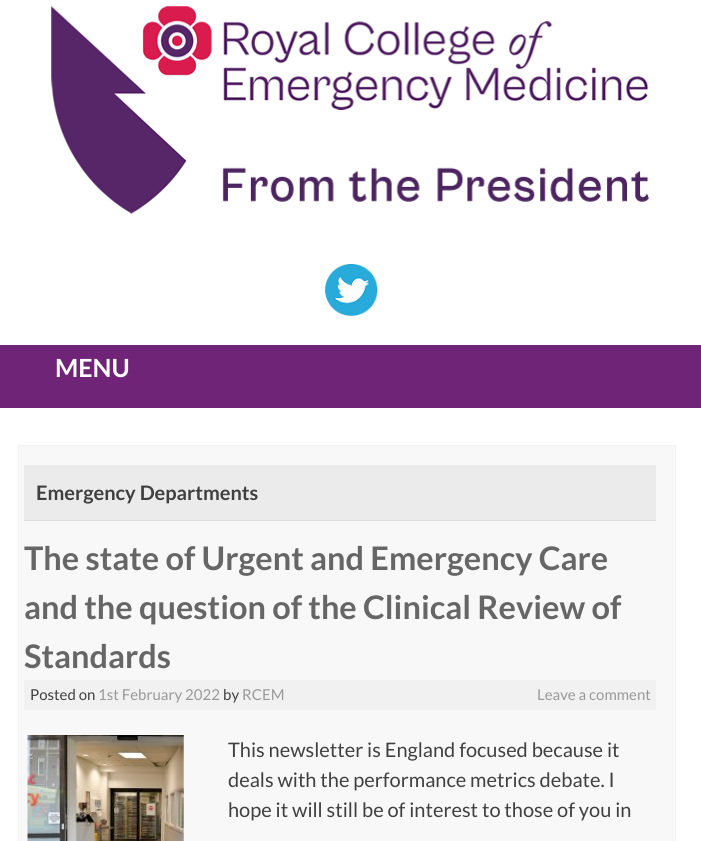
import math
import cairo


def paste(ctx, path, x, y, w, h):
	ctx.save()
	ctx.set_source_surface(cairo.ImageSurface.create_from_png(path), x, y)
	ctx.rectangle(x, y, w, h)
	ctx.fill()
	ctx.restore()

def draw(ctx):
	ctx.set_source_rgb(1, 1, 1)
	ctx.paint()
	paste(ctx, 'media/1.png', 51, 6, 599, 208)
	paste(ctx, 'media/2.png', 325, 264, 53, 53)
	ctx.set_source_rgb(0.439, 0.141, 0.467)
	ctx.rectangle(0, 345, 701, 63)
	ctx.fill()
	ctx.select_font_face('Lato', cairo.FONT_SLANT_NORMAL, cairo.FONT_WEIGHT_BOLD)
	ctx.set_font_size(25)
	ctx.set_source_rgb(1, 1, 1)
	ctx.move_to(55, 377)
	ctx.show_text('MENU')
	ctx.set_source_rgb(0.969, 0.969, 0.969)
	ctx.rectangle(18.5, 445.5, 657, 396)
	ctx.fill_preserve()
	ctx.set_source_rgb(0.949, 0.949, 0.949)
	ctx.set_line_width(1)
	ctx.stroke()
	ctx.set_source_rgb(0.918, 0.918, 0.918)
	ctx.rectangle(24, 465, 632, 55)
	ctx.fill()
	ctx.set_source_rgb(0.867, 0.867, 0.867)
	ctx.rectangle(24, 520, 632, 1)
	ctx.fill()
	ctx.set_font_size(20)
	ctx.set_source_rgb(0.251, 0.251, 0.251)
	ctx.move_to(36, 500)
	ctx.show_text('Emergency Departments')
	ctx.set_font_size(32.5)
	ctx.set_source_rgb(0.4, 0.4, 0.4)
	for x, y, s in [
		(24, 570, 'The state of Urgent and Emergency Care'),
		(24, 619, 'and the question of the Clinical Review of'),
		(24, 668, 'Standards'),
	]:
		ctx.move_to(x, y)
		ctx.show_text(s)
	ctx.set_source_rgb(0.945, 0.945, 0.945)
	ctx.rectangle(24, 680, 632, 30)
	ctx.fill()
	ctx.select_font_face('Lato')
	ctx.set_font_size(15)
	ctx.set_source_rgb(0.251, 0.251, 0.251)
	ctx.move_to(30, 700)
	ctx.show_text('Posted on')
	ctx.set_source_rgb(0.6, 0.6, 0.6)
	ctx.move_to(98, 700)
	ctx.show_text('1st February 2022')
	ctx.set_source_rgb(0.251, 0.251, 0.251)
	ctx.move_to(223, 700)
	ctx.show_text('by')
	ctx.set_source_rgb(0.6, 0.6, 0.6)
	ctx.move_to(242, 700)
	ctx.show_text('RCEM')
	ctx.move_to(537, 700)
	ctx.show_text('Leave a comment')
	paste(ctx, 'media/3.png', 27, 735, 157, 106)
	ctx.set_font_size(20)
	ctx.set_source_rgb(0.251, 0.251, 0.251)
	for x, y, s in [
		(228, 757, 'This newsletter is England focused because it'),
		(228, 787, 'deals with the performance metrics debate. I'),
		(228, 817, 'hope it will still be of interest to those of you in'),
	]:
		ctx.move_to(x, y)
		ctx.show_text(s)


surface = cairo.ImageSurface(cairo.FORMAT_RGB24, 701, 841)
ctx = cairo.Context(surface)
options = cairo.FontOptions()
options.set_hint_metrics(cairo.HINT_METRICS_OFF)
options.set_hint_style(cairo.HINT_STYLE_NONE)
ctx.set_font_options(options)
ctx.set_miter_limit(4)
draw(ctx)
surface.write_to_png('image.png')
